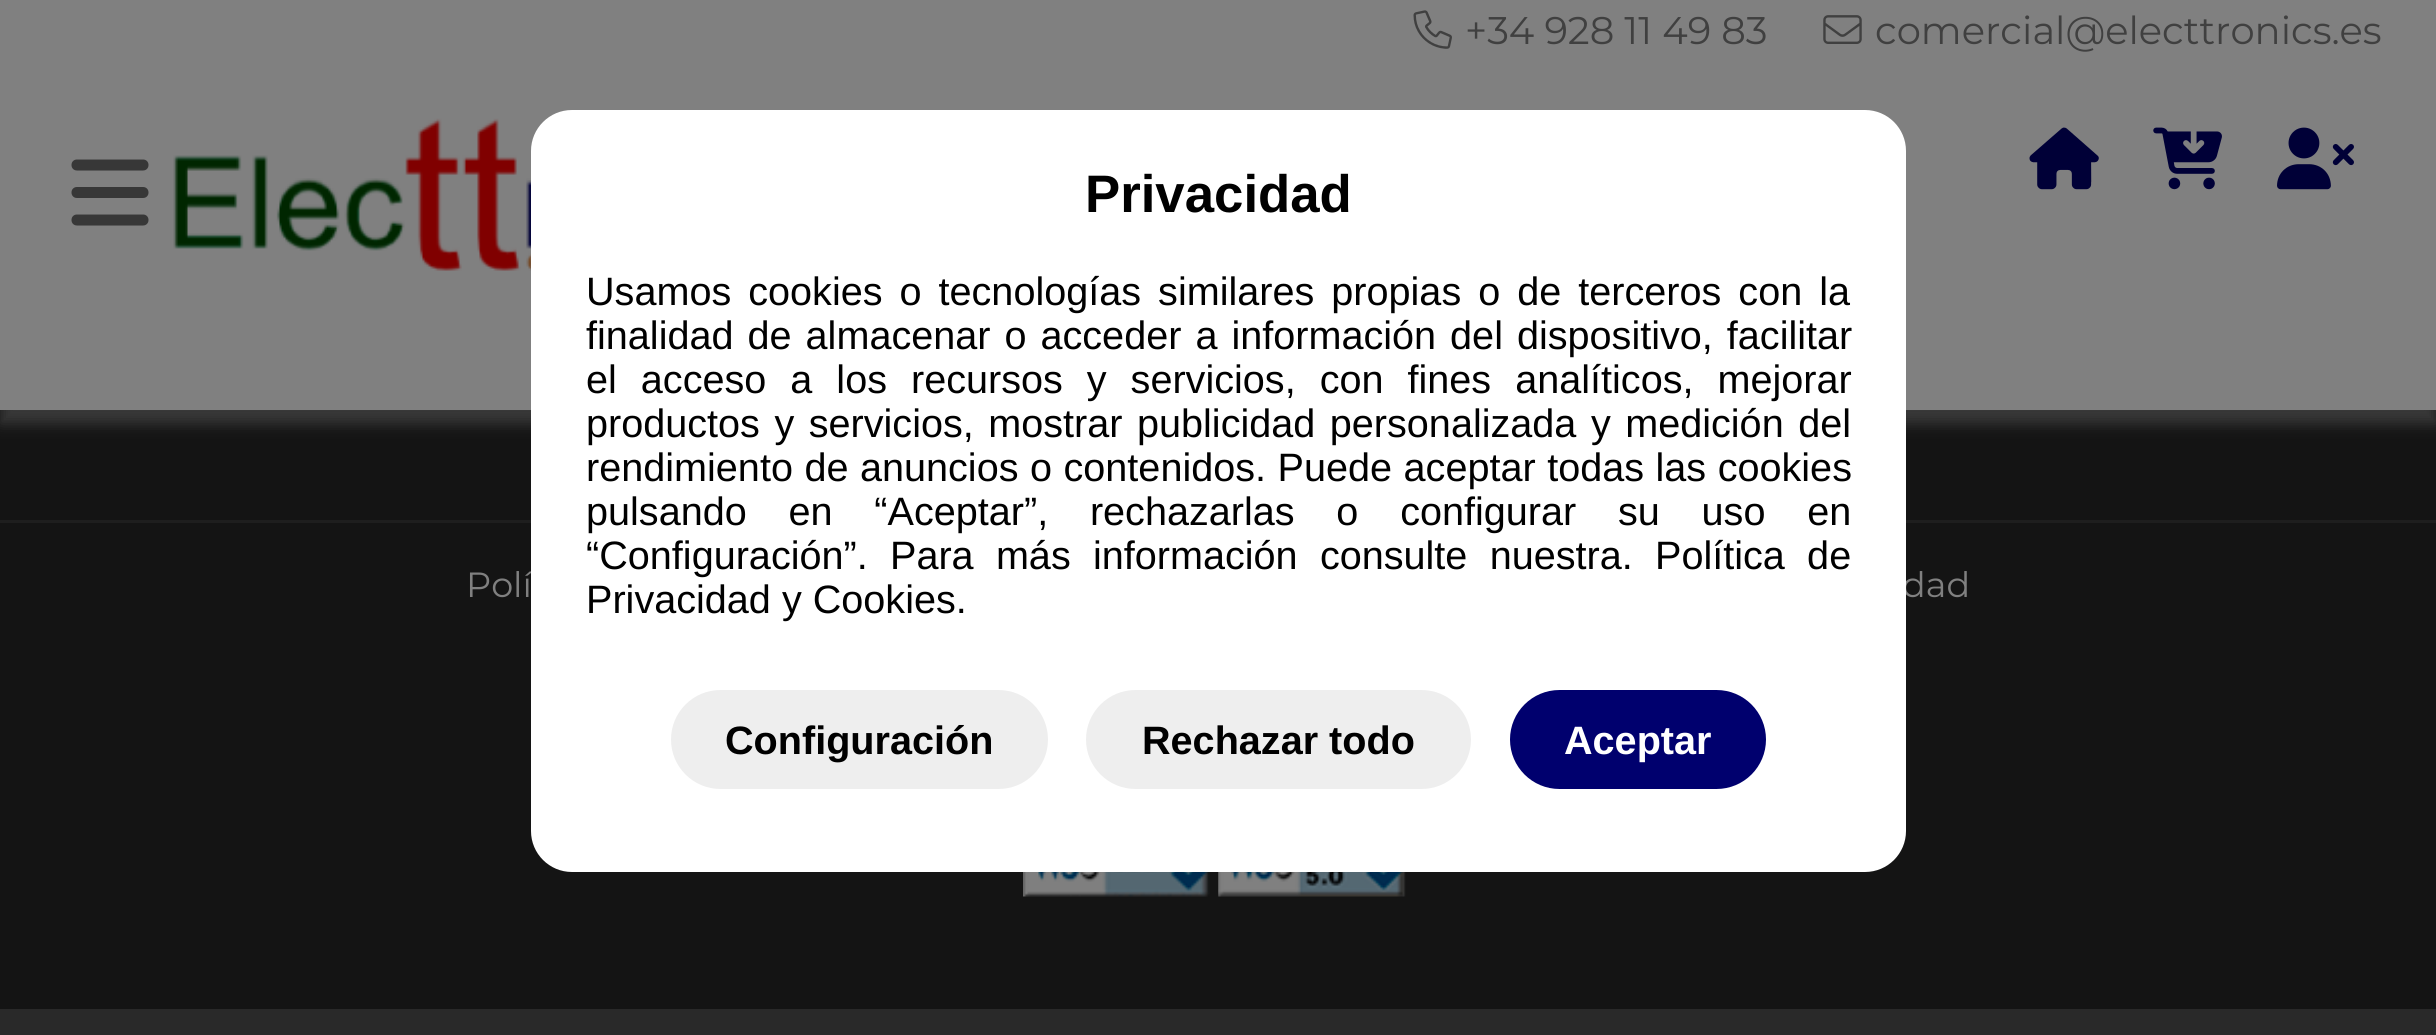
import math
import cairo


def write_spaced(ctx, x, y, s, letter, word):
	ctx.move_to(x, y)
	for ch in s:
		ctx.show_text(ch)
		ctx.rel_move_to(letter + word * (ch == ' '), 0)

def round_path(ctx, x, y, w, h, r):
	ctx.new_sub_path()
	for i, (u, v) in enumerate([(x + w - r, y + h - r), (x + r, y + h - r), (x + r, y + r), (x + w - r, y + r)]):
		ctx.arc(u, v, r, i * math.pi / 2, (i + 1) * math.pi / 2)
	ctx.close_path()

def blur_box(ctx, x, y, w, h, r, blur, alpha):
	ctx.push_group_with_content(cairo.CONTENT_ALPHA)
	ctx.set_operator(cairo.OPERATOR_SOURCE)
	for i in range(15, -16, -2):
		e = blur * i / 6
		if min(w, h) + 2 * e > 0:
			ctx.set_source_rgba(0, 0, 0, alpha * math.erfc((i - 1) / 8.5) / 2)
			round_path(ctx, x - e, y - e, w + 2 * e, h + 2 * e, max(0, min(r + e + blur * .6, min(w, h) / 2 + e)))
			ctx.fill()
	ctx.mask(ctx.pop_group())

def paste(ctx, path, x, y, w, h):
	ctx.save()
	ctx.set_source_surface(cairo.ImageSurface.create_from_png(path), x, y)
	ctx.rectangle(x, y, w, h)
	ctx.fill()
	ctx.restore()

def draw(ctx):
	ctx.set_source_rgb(0.161, 0.161, 0.161)
	ctx.paint()
	ctx.set_source_rgb(0.082, 0.082, 0.082)
	ctx.rectangle(0, 410, 2436, 599)
	ctx.fill()
	ctx.set_source_rgb(0.365, 0.365, 0.365)
	blur_box(ctx, 0, 14, 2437, 410, 0, 7, 0.5)
	ctx.set_source_rgb(0.502, 0.502, 0.502)
	ctx.rectangle(0, 0, 2436, 410)
	ctx.fill()
	paste(ctx, 'media/1.png', 1413, 10, 39, 39)
	ctx.select_font_face('Montserrat')
	ctx.set_font_size(38.5)
	ctx.set_source_rgb(0.251, 0.251, 0.251)
	ctx.move_to(1465, 44)
	ctx.show_text('+34 928 11 49 83')
	paste(ctx, 'media/2.png', 1823, 15, 39, 29)
	ctx.move_to(1875, 44)
	ctx.show_text('comercial@electtronics.es')
	paste(ctx, 'media/3.png', 71, 159, 78, 67)
	paste(ctx, 'media/4.png', 173, 118, 375, 159)
	paste(ctx, 'media/5.png', 2029, 127, 70, 63)
	paste(ctx, 'media/6.png', 2153, 127, 69, 63)
	paste(ctx, 'media/7.png', 2277, 127, 77, 63)
	ctx.set_source_rgb(0.118, 0.118, 0.118)
	ctx.rectangle(0, 520, 2436, 3)
	ctx.fill()
	ctx.set_font_size(35)
	ctx.set_source_rgb(0.502, 0.502, 0.502)
	ctx.move_to(466, 597)
	ctx.show_text('Polí')
	ctx.move_to(1902, 597)
	ctx.show_text('dad')
	ctx.set_source_rgb(1, 1, 1)
	round_path(ctx, 531, 110, 1375, 762, 41)
	ctx.fill()
	ctx.select_font_face('Liberation Sans', cairo.FONT_SLANT_NORMAL, cairo.FONT_WEIGHT_BOLD)
	ctx.set_font_size(52.75)
	ctx.set_source_rgb(0, 0, 0)
	ctx.move_to(1085, 212)
	ctx.show_text('Privacidad')
	ctx.select_font_face('Liberation Sans')
	ctx.set_font_size(39.6)
	write_spaced(ctx, 586, 305, 'Usamos cookies o tecnologías similares propias o de terceros con la', 0, 6)
	write_spaced(ctx, 586, 349, 'finalidad de almacenar o acceder a información del dispositivo, facilitar', 0, 3)
	write_spaced(ctx, 586, 393, 'el acceso a los recursos y servicios, con fines analíticos, mejorar', 0, 13)
	write_spaced(ctx, 586, 437, 'productos y servicios, mostrar publicidad personalizada y medición del', 0, 3.5)
	write_spaced(ctx, 586, 481, 'rendimiento de anuncios o contenidos. Puede aceptar todas las cookies', 0, 0.5)
	write_spaced(ctx, 586, 525, 'pulsando en “Aceptar”, rechazarlas o configurar su uso en', 0, 30.75)
	write_spaced(ctx, 586, 569, '“Configuración”. Para más información consulte nuestra. Política de', 0, 11.25)
	ctx.move_to(586, 613)
	ctx.show_text('Privacidad y Cookies.')
	ctx.set_source_rgb(0.933, 0.933, 0.933)
	round_path(ctx, 671, 690, 377, 99, 49.5)
	ctx.fill()
	ctx.select_font_face('Liberation Sans', cairo.FONT_SLANT_NORMAL, cairo.FONT_WEIGHT_BOLD)
	ctx.set_source_rgb(0, 0, 0)
	ctx.move_to(725, 754)
	ctx.show_text('Configuración')
	ctx.set_source_rgb(0.933, 0.933, 0.933)
	round_path(ctx, 1086, 690, 385, 99, 49.5)
	ctx.fill()
	ctx.set_source_rgb(0, 0, 0)
	ctx.move_to(1142, 754)
	ctx.show_text('Rechazar todo')
	ctx.set_source_rgb(0, 0, 0.431)
	round_path(ctx, 1510, 690, 256, 99, 49.5)
	ctx.fill()
	ctx.set_source_rgb(1, 1, 1)
	ctx.move_to(1564, 754)
	ctx.show_text('Aceptar')
	paste(ctx, 'media/8.png', 1023, 872, 188, 25)
	paste(ctx, 'media/9.png', 1218, 872, 188, 25)


surface = cairo.ImageSurface(cairo.FORMAT_RGB24, 2436, 1035)
ctx = cairo.Context(surface)
options = cairo.FontOptions()
options.set_hint_metrics(cairo.HINT_METRICS_OFF)
options.set_hint_style(cairo.HINT_STYLE_NONE)
ctx.set_font_options(options)
ctx.set_miter_limit(4)
draw(ctx)
surface.write_to_png('image.png')
